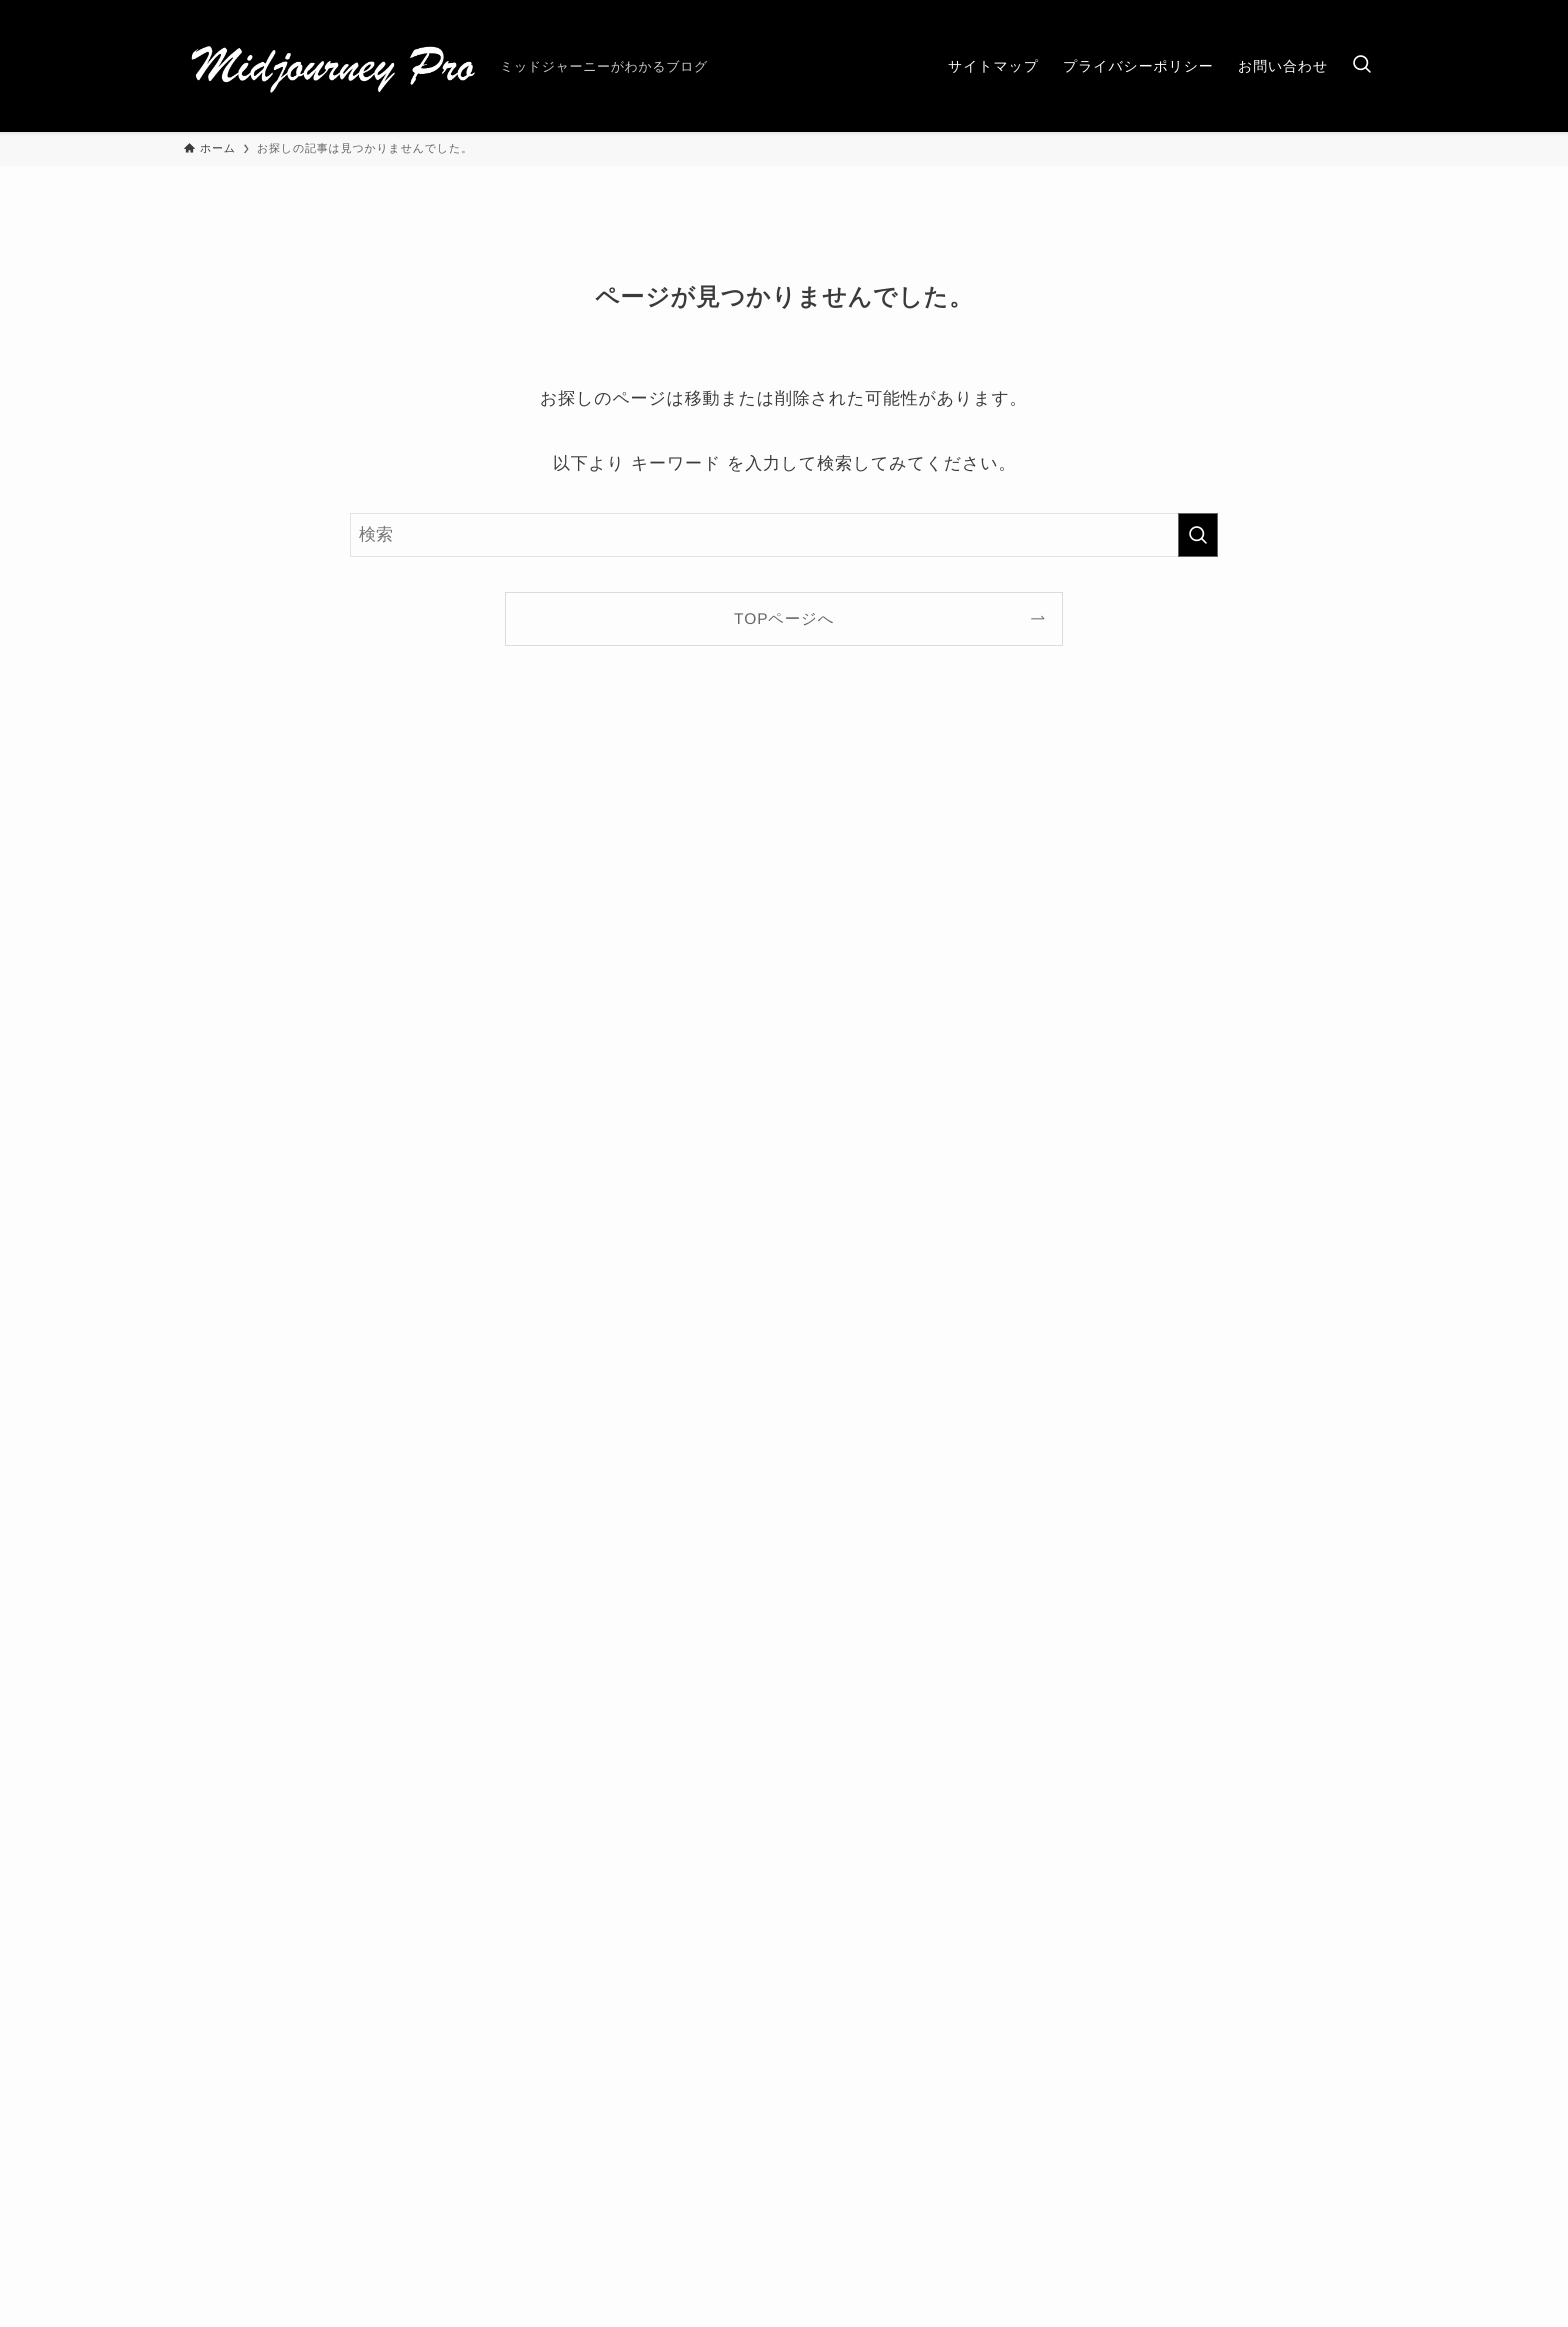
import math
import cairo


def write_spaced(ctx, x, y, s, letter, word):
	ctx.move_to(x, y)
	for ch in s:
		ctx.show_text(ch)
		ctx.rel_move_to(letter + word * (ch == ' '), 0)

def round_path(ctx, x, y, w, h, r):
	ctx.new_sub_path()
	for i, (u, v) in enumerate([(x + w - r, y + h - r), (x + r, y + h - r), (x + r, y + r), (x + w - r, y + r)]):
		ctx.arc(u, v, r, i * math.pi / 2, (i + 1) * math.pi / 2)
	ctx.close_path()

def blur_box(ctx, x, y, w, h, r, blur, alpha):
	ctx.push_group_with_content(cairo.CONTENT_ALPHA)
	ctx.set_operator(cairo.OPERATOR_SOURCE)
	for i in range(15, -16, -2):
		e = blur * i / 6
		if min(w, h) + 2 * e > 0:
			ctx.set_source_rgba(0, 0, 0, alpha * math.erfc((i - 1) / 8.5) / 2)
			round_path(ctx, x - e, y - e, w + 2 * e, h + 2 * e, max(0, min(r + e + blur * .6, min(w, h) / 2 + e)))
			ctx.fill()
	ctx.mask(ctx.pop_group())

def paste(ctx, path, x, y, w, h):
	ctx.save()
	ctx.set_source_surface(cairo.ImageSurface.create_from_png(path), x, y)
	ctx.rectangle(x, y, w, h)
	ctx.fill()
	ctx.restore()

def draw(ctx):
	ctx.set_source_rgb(0.992, 0.992, 0.992)
	ctx.paint()
	ctx.set_source_rgb(0.969, 0.969, 0.969)
	ctx.rectangle(0, 132, 1568, 34)
	ctx.fill()
	ctx.set_source_rgb(0, 0, 0)
	blur_box(ctx, 0, 1, 1568, 132, 0, 2, 0.12)
	ctx.set_source_rgb(0, 0, 0)
	ctx.rectangle(0, 0, 1568, 132)
	ctx.fill()
	paste(ctx, 'media/1.png', 191, 46, 284, 47)
	ctx.select_font_face('WenQuanYi Zen Hei Medium')
	ctx.set_font_size(13)
	ctx.set_source_rgb(0.8, 0.8, 0.8)
	write_spaced(ctx, 500, 71, 'ミッドジャーニーがわかるブログ', 0.6, 0)
	ctx.set_font_size(14)
	ctx.set_source_rgb(1, 1, 1)
	for x, y, s in [
		(948, 71, 'サイトマップ'),
		(1063, 71, 'プライバシーポリシー'),
		(1238, 71, 'お問い合わせ'),
	]:
		write_spaced(ctx, x, y, s, 0.8, 0)
	paste(ctx, 'media/2.png', 1353, 55, 18, 18)
	paste(ctx, 'media/3.png', 184, 143, 11, 10)
	ctx.set_font_size(11)
	ctx.set_source_rgb(0.227, 0.227, 0.227)
	write_spaced(ctx, 200, 152, 'ホーム', 0.8, 0)
	ctx.set_source_rgb(0.376, 0.376, 0.376)
	ctx.new_path()
	ctx.move_to(245.5, 144.5)
	ctx.line_to(244, 145)
	ctx.line_to(247, 149)
	ctx.line_to(244, 153)
	ctx.line_to(245.5, 153)
	ctx.line_to(248.5, 149)
	ctx.close_path()
	ctx.fill()
	write_spaced(ctx, 257, 152, 'お探しの記事は見つかりませんでした。', 0.8, 0)
	ctx.select_font_face('WenQuanYi Zen Hei', cairo.FONT_SLANT_NORMAL, cairo.FONT_WEIGHT_BOLD)
	ctx.set_font_size(24)
	ctx.set_source_rgb(0.227, 0.227, 0.227)
	write_spaced(ctx, 595, 305, 'ページが見つかりませんでした。', 0.8, 0)
	ctx.select_font_face('WenQuanYi Zen Hei Medium')
	ctx.set_font_size(17)
	write_spaced(ctx, 540, 404, 'お探しのページは移動または削除された可能性があります。', 0.8, 0)
	write_spaced(ctx, 553, 469, '以下より キーワード を入力して検索してみてください。', 0.8, 0)
	ctx.rectangle(350.5, 513.5, 867, 43)
	ctx.set_source_rgb(0.89, 0.89, 0.89)
	ctx.set_line_width(1)
	ctx.stroke()
	ctx.set_source_rgb(0.459, 0.459, 0.459)
	ctx.move_to(359, 540)
	ctx.show_text('検索')
	ctx.set_source_rgb(0, 0, 0)
	ctx.rectangle(1178.5, 513.5, 39, 43)
	ctx.fill_preserve()
	ctx.set_source_rgb(0.392, 0.392, 0.392)
	ctx.stroke()
	paste(ctx, 'media/2.png', 1189, 526, 18, 18)
	ctx.rectangle(505.5, 592.5, 557, 53)
	ctx.set_source_rgb(0.863, 0.863, 0.863)
	ctx.stroke()
	ctx.select_font_face('Liberation Sans')
	ctx.set_font_size(15.5)
	ctx.set_source_rgb(0.4, 0.4, 0.4)
	write_spaced(ctx, 734, 624, 'TOP', 0.8, 0)
	ctx.select_font_face('WenQuanYi Zen Hei Medium')
	write_spaced(ctx, 768, 624, 'ページへ', 0.8, 0)
	paste(ctx, 'media/4.png', 1031, 615, 14, 5)


surface = cairo.ImageSurface(cairo.FORMAT_RGB24, 1568, 2327)
ctx = cairo.Context(surface)
options = cairo.FontOptions()
options.set_hint_metrics(cairo.HINT_METRICS_OFF)
options.set_hint_style(cairo.HINT_STYLE_NONE)
ctx.set_font_options(options)
ctx.set_miter_limit(4)
draw(ctx)
surface.write_to_png('image.png')
